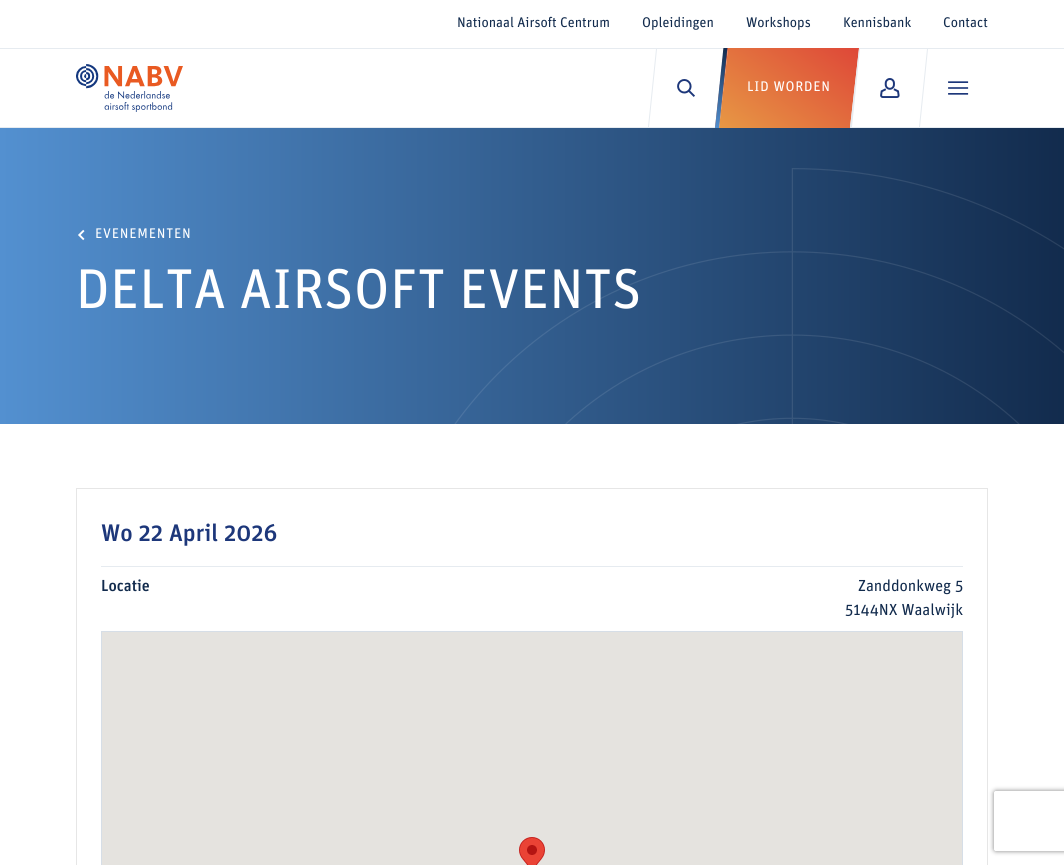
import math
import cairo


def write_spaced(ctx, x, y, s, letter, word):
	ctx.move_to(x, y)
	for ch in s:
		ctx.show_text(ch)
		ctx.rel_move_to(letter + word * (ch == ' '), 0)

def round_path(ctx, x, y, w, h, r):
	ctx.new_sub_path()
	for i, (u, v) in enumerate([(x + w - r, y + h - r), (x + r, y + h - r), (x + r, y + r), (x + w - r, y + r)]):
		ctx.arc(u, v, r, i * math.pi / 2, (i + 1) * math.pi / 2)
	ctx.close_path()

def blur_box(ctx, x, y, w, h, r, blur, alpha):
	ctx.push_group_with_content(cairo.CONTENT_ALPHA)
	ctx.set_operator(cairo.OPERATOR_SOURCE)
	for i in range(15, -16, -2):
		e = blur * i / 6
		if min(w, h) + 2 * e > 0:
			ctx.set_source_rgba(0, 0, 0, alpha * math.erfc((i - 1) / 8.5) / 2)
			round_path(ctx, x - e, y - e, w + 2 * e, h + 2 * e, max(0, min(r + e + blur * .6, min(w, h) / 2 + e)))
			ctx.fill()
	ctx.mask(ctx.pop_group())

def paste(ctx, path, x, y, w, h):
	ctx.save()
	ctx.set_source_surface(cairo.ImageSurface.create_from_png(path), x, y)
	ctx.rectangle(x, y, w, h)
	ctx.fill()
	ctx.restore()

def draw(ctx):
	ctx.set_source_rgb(1, 1, 1)
	ctx.paint()
	ctx.set_source_rgb(0.902, 0.918, 0.941)
	ctx.rectangle(0, 48, 1064, 1)
	ctx.fill()
	ctx.select_font_face('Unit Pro')
	ctx.set_font_size(14)
	ctx.set_source_rgb(0.071, 0.169, 0.302)
	for x, y, s in [
		(457, 27, 'Nationaal Airsoft Centrum'),
		(642, 27, 'Opleidingen'),
		(746, 27, 'Workshops'),
		(843, 27, 'Kennisbank'),
		(943, 27, 'Contact'),
	]:
		ctx.move_to(x, y)
		ctx.show_text(s)
	ctx.set_source_rgb(0.902, 0.918, 0.941)
	ctx.rectangle(0, 127, 1064, 1)
	ctx.fill()
	paste(ctx, 'media/1.png', 76, 64, 107, 48)
	ctx.new_path()
	ctx.move_to(656, 49)
	ctx.line_to(657, 49)
	ctx.line_to(649, 127)
	ctx.line_to(648, 127)
	ctx.close_path()
	ctx.fill()
	paste(ctx, 'media/2.png', 677, 79, 18, 18)
	gradient = cairo.LinearGradient(616, 146, 699, 30)
	gradient.add_color_stop_rgba(0, 0.906, 0.592, 0.267, 1)
	gradient.add_color_stop_rgba(1, 0.871, 0.282, 0.22, 1)
	ctx.set_source(gradient)
	ctx.new_path()
	ctx.move_to(724, 48)
	ctx.line_to(715, 128)
	ctx.line_to(719, 128)
	ctx.line_to(728, 48)
	ctx.close_path()
	ctx.fill()
	gradient = cairo.LinearGradient(747, 146, 831, 30)
	gradient.add_color_stop_rgba(0, 0.906, 0.592, 0.267, 1)
	gradient.add_color_stop_rgba(1, 0.871, 0.282, 0.22, 1)
	ctx.set_source(gradient)
	ctx.new_path()
	ctx.move_to(728, 48)
	ctx.line_to(719, 128)
	ctx.line_to(850, 128)
	ctx.line_to(859, 48)
	ctx.close_path()
	ctx.fill()
	paste(ctx, 'media/3.png', 715, 48, 13, 80)
	ctx.set_source_rgb(1, 1, 1)
	write_spaced(ctx, 747, 91, 'LID WORDEN', 0.75, 0)
	ctx.set_source_rgb(0.902, 0.918, 0.941)
	ctx.new_path()
	ctx.move_to(859, 49)
	ctx.line_to(860, 49)
	ctx.line_to(852, 127)
	ctx.line_to(850, 127)
	ctx.close_path()
	ctx.fill()
	paste(ctx, 'media/4.png', 880, 78, 20, 20)
	ctx.new_path()
	ctx.move_to(927, 49)
	ctx.line_to(928, 49)
	ctx.line_to(920, 127)
	ctx.line_to(919, 127)
	ctx.close_path()
	ctx.fill()
	paste(ctx, 'media/5.png', 948, 81, 21, 14)
	gradient = cairo.LinearGradient(0, 276, 1064, 276)
	gradient.add_color_stop_rgba(0, 0.325, 0.565, 0.816, 1)
	gradient.add_color_stop_rgba(1, 0.071, 0.169, 0.302, 1)
	ctx.set_source(gradient)
	ctx.rectangle(0, 128, 1064, 296)
	ctx.fill()
	paste(ctx, 'media/6.png', 78, 229, 7, 12)
	ctx.set_source_rgb(1, 1, 1)
	write_spaced(ctx, 95, 238, 'EVENEMENTEN', 0.75, 0)
	paste(ctx, 'media/7.png', 454, 168, 610, 256)
	ctx.set_font_size(56)
	ctx.move_to(76, 308)
	ctx.show_text('DELTA AIRSOFT EVENTS')
	ctx.rectangle(76.5, 488.5, 911, 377)
	ctx.set_source_rgb(0.902, 0.902, 0.902)
	ctx.set_line_width(1)
	ctx.stroke()
	ctx.select_font_face('Unit Pro Medium')
	ctx.set_font_size(24)
	ctx.set_source_rgb(0.114, 0.216, 0.478)
	ctx.move_to(101, 541)
	ctx.show_text('Wo 22 April 2026')
	ctx.set_source_rgb(0.902, 0.918, 0.941)
	ctx.rectangle(101, 566, 862, 1)
	ctx.fill()
	ctx.set_font_size(16)
	ctx.set_source_rgb(0.071, 0.169, 0.302)
	ctx.move_to(101, 591)
	ctx.show_text('Locatie')
	ctx.select_font_face('Unit Pro')
	ctx.move_to(858, 591)
	ctx.show_text('Zanddonkweg 5')
	ctx.move_to(845, 615)
	ctx.show_text('5144NX Waalwijk')
	ctx.rectangle(101.5, 631.5, 861, 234)
	ctx.set_source_rgb(0.839, 0.871, 0.906)
	ctx.stroke()
	ctx.set_source_rgb(0.898, 0.89, 0.875)
	ctx.rectangle(102, 632, 860, 233)
	ctx.fill()
	paste(ctx, 'media/8.png', 519, 837, 26, 28)
	ctx.save()
	ctx.set_fill_rule(cairo.FILL_RULE_EVEN_ODD)
	ctx.new_path()
	ctx.move_to(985, 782)
	ctx.line_to(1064, 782)
	ctx.line_to(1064, 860)
	ctx.line_to(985, 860)
	ctx.close_path()
	ctx.move_to(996, 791)
	ctx.line_to(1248, 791)
	ctx.curve_to(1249, 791, 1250, 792, 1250, 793)
	ctx.line_to(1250, 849)
	ctx.curve_to(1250, 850, 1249, 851, 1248, 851)
	ctx.line_to(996, 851)
	ctx.curve_to(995, 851, 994, 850, 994, 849)
	ctx.line_to(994, 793)
	ctx.curve_to(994, 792, 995, 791, 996, 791)
	ctx.close_path()
	ctx.clip()
	ctx.set_source_rgb(0.502, 0.502, 0.502)
	blur_box(ctx, 994, 791, 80, 60, 2, 2.5, 1)
	ctx.restore()


surface = cairo.ImageSurface(cairo.FORMAT_RGB24, 1064, 865)
ctx = cairo.Context(surface)
options = cairo.FontOptions()
options.set_hint_metrics(cairo.HINT_METRICS_OFF)
options.set_hint_style(cairo.HINT_STYLE_NONE)
ctx.set_font_options(options)
ctx.set_miter_limit(4)
draw(ctx)
surface.write_to_png('image.png')
